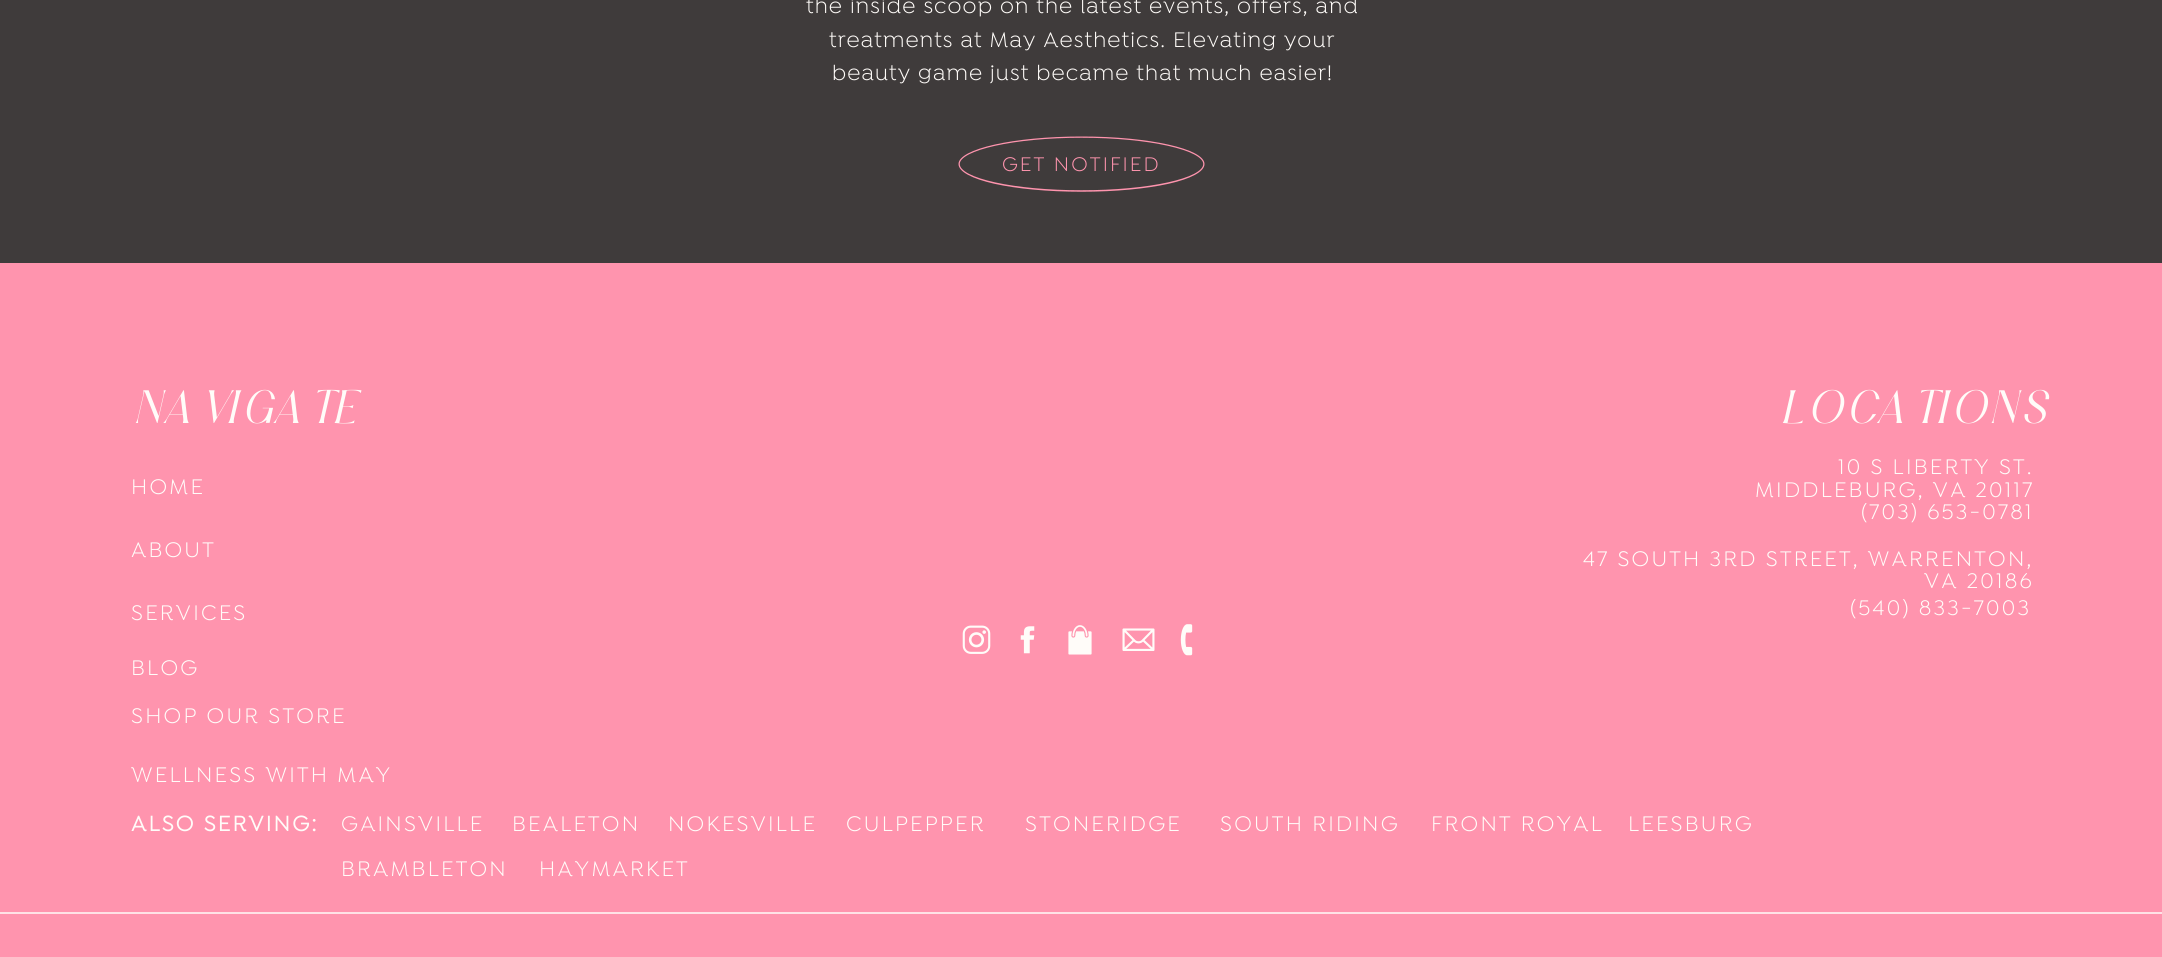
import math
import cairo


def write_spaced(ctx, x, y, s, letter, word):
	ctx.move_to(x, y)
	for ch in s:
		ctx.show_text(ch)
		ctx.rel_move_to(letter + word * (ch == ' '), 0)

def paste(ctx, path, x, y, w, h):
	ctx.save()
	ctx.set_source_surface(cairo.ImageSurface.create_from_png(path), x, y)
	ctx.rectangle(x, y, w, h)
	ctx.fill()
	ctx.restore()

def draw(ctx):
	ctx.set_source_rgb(0.247, 0.231, 0.231)
	ctx.paint()
	ctx.select_font_face('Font')
	ctx.set_font_size(22.5)
	ctx.set_source_rgb(1, 0.988, 0.976)
	for x, y, s in [
		(806, 13, 'the inside scoop on the latest events, offers, and'),
		(829, 47, 'treatments at May Aesthetics. Elevating your'),
		(832, 80, 'beauty game just became that much easier!'),
	]:
		write_spaced(ctx, x, y, s, 1.12, 0)
	ctx.save()
	ctx.new_path()
	ctx.move_to(1081.5, 136.5)
	ctx.curve_to(1149.5, 136.5, 1204.5, 149, 1204.5, 164)
	ctx.curve_to(1204.5, 179.5, 1149.5, 192, 1081.5, 192)
	ctx.curve_to(1013.5, 192, 958.5, 179.5, 958.5, 164)
	ctx.curve_to(958.5, 149, 1013.5, 136.5, 1081.5, 136.5)
	ctx.close_path()
	ctx.clip()
	ctx.new_path()
	ctx.move_to(1081.5, 137)
	ctx.curve_to(1149, 137, 1204, 149.5, 1204, 164)
	ctx.curve_to(1204, 179, 1149, 191, 1081.5, 191)
	ctx.curve_to(1014, 191, 959, 179, 959, 164)
	ctx.curve_to(959, 149.5, 1014, 137, 1081.5, 137)
	ctx.close_path()
	ctx.set_source_rgb(1, 0.58, 0.682)
	ctx.set_line_width(1.5)
	ctx.stroke()
	ctx.restore()
	ctx.set_font_size(21)
	ctx.set_source_rgb(1, 0.58, 0.682)
	write_spaced(ctx, 1002, 171, 'GET NOTIFIED', 2.1, 0)
	ctx.rectangle(0, 263, 2162, 694)
	ctx.fill()
	ctx.select_font_face('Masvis', cairo.FONT_SLANT_ITALIC)
	ctx.set_font_size(45)
	ctx.set_source_rgb(1, 0.988, 0.976)
	write_spaced(ctx, 131, 423, 'NAVIGATE', 4.5, 0)
	write_spaced(ctx, 1778, 423, 'LOCATIONS', 4.5, 0)
	ctx.select_font_face('Font')
	ctx.set_font_size(22.5)
	for x, y, s in [
		(131, 494, 'HOME'),
		(1838, 474, '10 S LIBERTY ST.'),
		(1755, 497, 'MIDDLEBURG, VA 20117'),
		(1861, 519, '(703) 653-0781'),
		(131, 557, 'ABOUT'),
		(1583, 566, '47 SOUTH 3RD STREET, WARRENTON,'),
		(1924, 588, 'VA 20186'),
		(131, 620, 'SERVICES'),
		(1850, 615, '(540) 833-7003'),
	]:
		write_spaced(ctx, x, y, s, 2.25, 0)
	paste(ctx, 'media/1.png', 962, 625, 29, 29)
	paste(ctx, 'media/2.png', 1020, 626, 15, 28)
	paste(ctx, 'media/3.png', 1068, 625, 24, 30)
	paste(ctx, 'media/4.png', 1122, 628, 33, 23)
	paste(ctx, 'media/5.png', 1180, 624, 13, 32)
	for x, y, s in [
		(131, 675, 'BLOG'),
		(131, 723, 'SHOP OUR STORE'),
		(131, 782, 'WELLNESS WITH MAY'),
	]:
		write_spaced(ctx, x, y, s, 2.25, 0)
	ctx.select_font_face('Font', cairo.FONT_SLANT_NORMAL, cairo.FONT_WEIGHT_BOLD)
	write_spaced(ctx, 131, 831, 'ALSO SERVING:', 2.25, 0)
	ctx.select_font_face('Font')
	for x, y, s in [
		(341, 831, 'GAINSVILLE'),
		(512, 831, 'BEALETON'),
		(668, 831, 'NOKESVILLE'),
		(846, 831, 'CULPEPPER'),
		(1025, 831, 'STONERIDGE'),
		(1220, 831, 'SOUTH RIDING'),
		(1431, 831, 'FRONT ROYAL'),
		(1628, 831, 'LEESBURG'),
		(341, 876, 'BRAMBLETON'),
		(539, 876, 'HAYMARKET'),
	]:
		write_spaced(ctx, x, y, s, 2.25, 0)
	ctx.set_source_rgb(1, 0.886, 0.902)
	ctx.rectangle(0, 912, 2162, 2)
	ctx.fill()


surface = cairo.ImageSurface(cairo.FORMAT_RGB24, 2162, 957)
ctx = cairo.Context(surface)
options = cairo.FontOptions()
options.set_hint_metrics(cairo.HINT_METRICS_OFF)
options.set_hint_style(cairo.HINT_STYLE_NONE)
ctx.set_font_options(options)
ctx.set_miter_limit(4)
draw(ctx)
surface.write_to_png('image.png')
